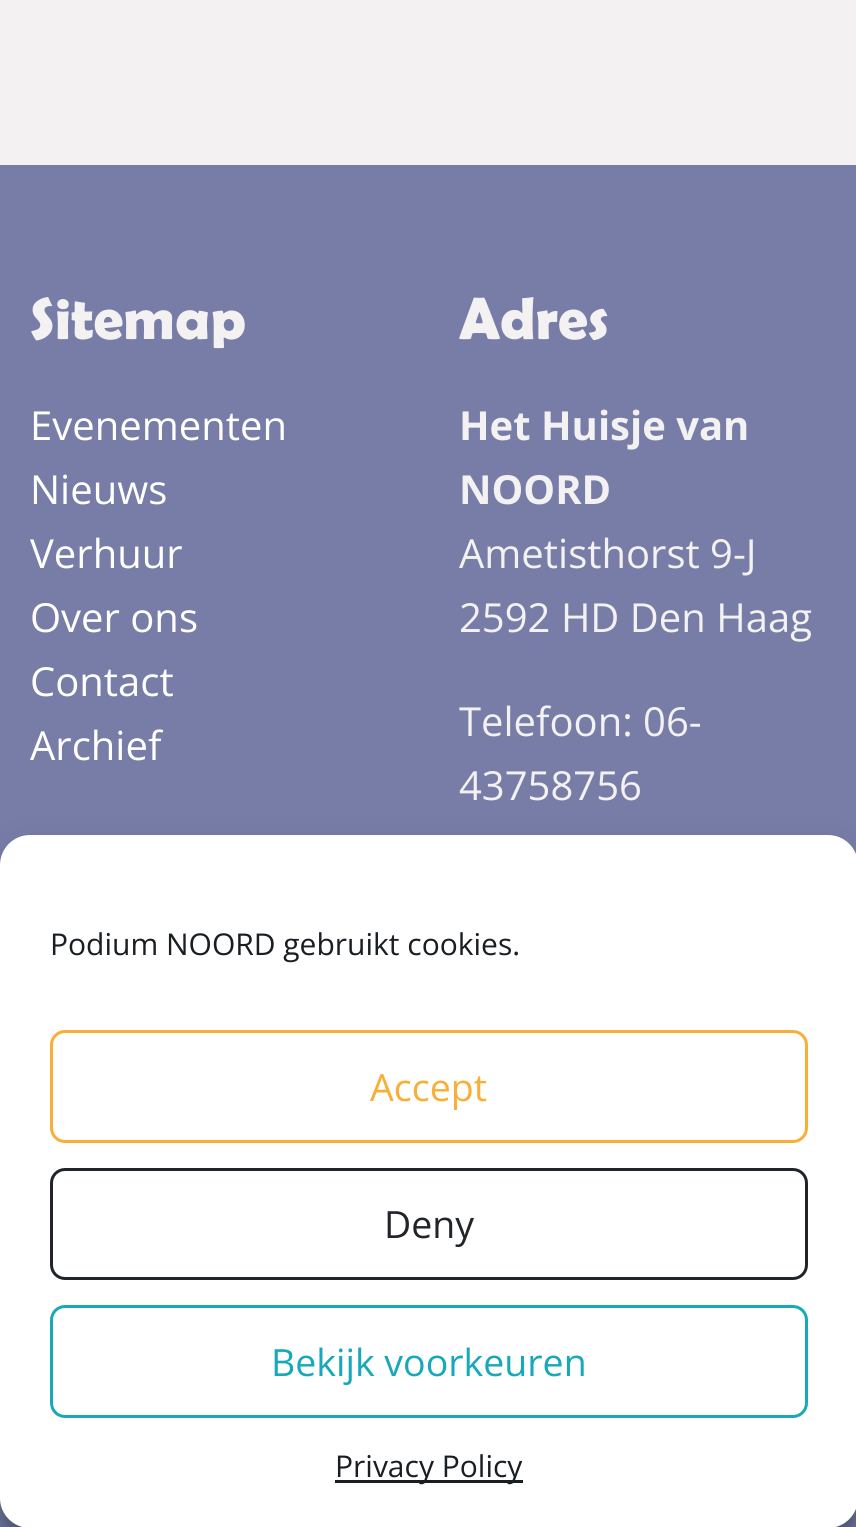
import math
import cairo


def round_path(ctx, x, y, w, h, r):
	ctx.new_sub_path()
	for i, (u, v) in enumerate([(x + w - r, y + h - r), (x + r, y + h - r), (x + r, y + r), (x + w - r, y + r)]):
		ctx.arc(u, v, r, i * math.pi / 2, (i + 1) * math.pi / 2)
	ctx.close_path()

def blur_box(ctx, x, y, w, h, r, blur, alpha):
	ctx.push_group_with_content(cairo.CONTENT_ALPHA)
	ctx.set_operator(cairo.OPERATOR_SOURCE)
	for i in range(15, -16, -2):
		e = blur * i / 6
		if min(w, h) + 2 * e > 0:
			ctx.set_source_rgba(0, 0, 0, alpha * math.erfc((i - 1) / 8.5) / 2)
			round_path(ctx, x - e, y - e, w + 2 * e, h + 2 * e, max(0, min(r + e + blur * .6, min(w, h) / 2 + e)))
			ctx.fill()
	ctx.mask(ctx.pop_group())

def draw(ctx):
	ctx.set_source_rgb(0.953, 0.945, 0.945)
	ctx.paint()
	ctx.set_source_rgb(0.467, 0.49, 0.655)
	ctx.rectangle(0, 165, 856, 1362)
	ctx.fill()
	ctx.select_font_face('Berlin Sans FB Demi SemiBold')
	ctx.set_font_size(59.5)
	ctx.set_source_rgb(0.953, 0.945, 0.945)
	ctx.move_to(30, 339)
	ctx.show_text('Sitemap')
	ctx.select_font_face('Open Sans')
	ctx.set_font_size(40)
	ctx.set_source_rgb(1, 1, 1)
	for x, y, s in [
		(30, 440, 'Evenementen'),
		(30, 504, 'Nieuws'),
		(30, 568, 'Verhuur'),
		(30, 632, 'Over ons'),
		(30, 696, 'Contact'),
		(30, 760, 'Archief'),
	]:
		ctx.move_to(x, y)
		ctx.show_text(s)
	ctx.select_font_face('Berlin Sans FB Demi SemiBold')
	ctx.set_font_size(59.5)
	ctx.set_source_rgb(0.953, 0.945, 0.945)
	ctx.move_to(459, 339)
	ctx.show_text('Adres')
	ctx.select_font_face('Open Sans', cairo.FONT_SLANT_NORMAL, cairo.FONT_WEIGHT_BOLD)
	ctx.set_font_size(40)
	ctx.move_to(459, 440)
	ctx.show_text('Het Huisje van')
	ctx.move_to(459, 504)
	ctx.show_text('NOORD')
	ctx.select_font_face('Open Sans')
	for x, y, s in [
		(459, 568, 'Ametisthorst 9-J'),
		(459, 632, '2592 HD Den Haag'),
		(459, 736, 'Telefoon: 06-'),
		(459, 800, '43758756'),
	]:
		ctx.move_to(x, y)
		ctx.show_text(s)
	ctx.set_source_rgb(0, 0, 0)
	blur_box(ctx, 0, 850, 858, 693, 30, 7.5, 0.23)
	blur_box(ctx, 0, 860, 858, 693, 30, 25, 0.19)
	ctx.set_source_rgb(1, 1, 1)
	round_path(ctx, 0, 835, 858, 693, 30)
	ctx.fill()
	ctx.set_font_size(30)
	ctx.set_source_rgb(0.098, 0.118, 0.137)
	ctx.move_to(50, 955)
	ctx.show_text('Podium NOORD gebruikt cookies.')
	round_path(ctx, 51.5, 1031.5, 755, 110, 13.5)
	ctx.set_source_rgb(0.973, 0.682, 0.208)
	ctx.set_line_width(3)
	ctx.stroke()
	ctx.set_font_size(37.5)
	ctx.move_to(370, 1101)
	ctx.show_text('Accept')
	round_path(ctx, 51.5, 1169.5, 755, 109, 13.5)
	ctx.set_source_rgb(0.129, 0.145, 0.161)
	ctx.stroke()
	ctx.move_to(384, 1238)
	ctx.show_text('Deny')
	round_path(ctx, 51.5, 1306.5, 755, 110, 13.5)
	ctx.set_source_rgb(0.09, 0.663, 0.729)
	ctx.stroke()
	ctx.move_to(271, 1376)
	ctx.show_text('Bekijk voorkeuren')
	ctx.set_source_rgb(0.098, 0.118, 0.137)
	ctx.rectangle(335, 1480, 188, 3)
	ctx.fill()
	ctx.set_font_size(30)
	ctx.move_to(335, 1477)
	ctx.show_text('Privacy Policy')


surface = cairo.ImageSurface(cairo.FORMAT_RGB24, 856, 1527)
ctx = cairo.Context(surface)
options = cairo.FontOptions()
options.set_hint_metrics(cairo.HINT_METRICS_OFF)
options.set_hint_style(cairo.HINT_STYLE_NONE)
ctx.set_font_options(options)
ctx.set_miter_limit(4)
draw(ctx)
surface.write_to_png('image.png')
